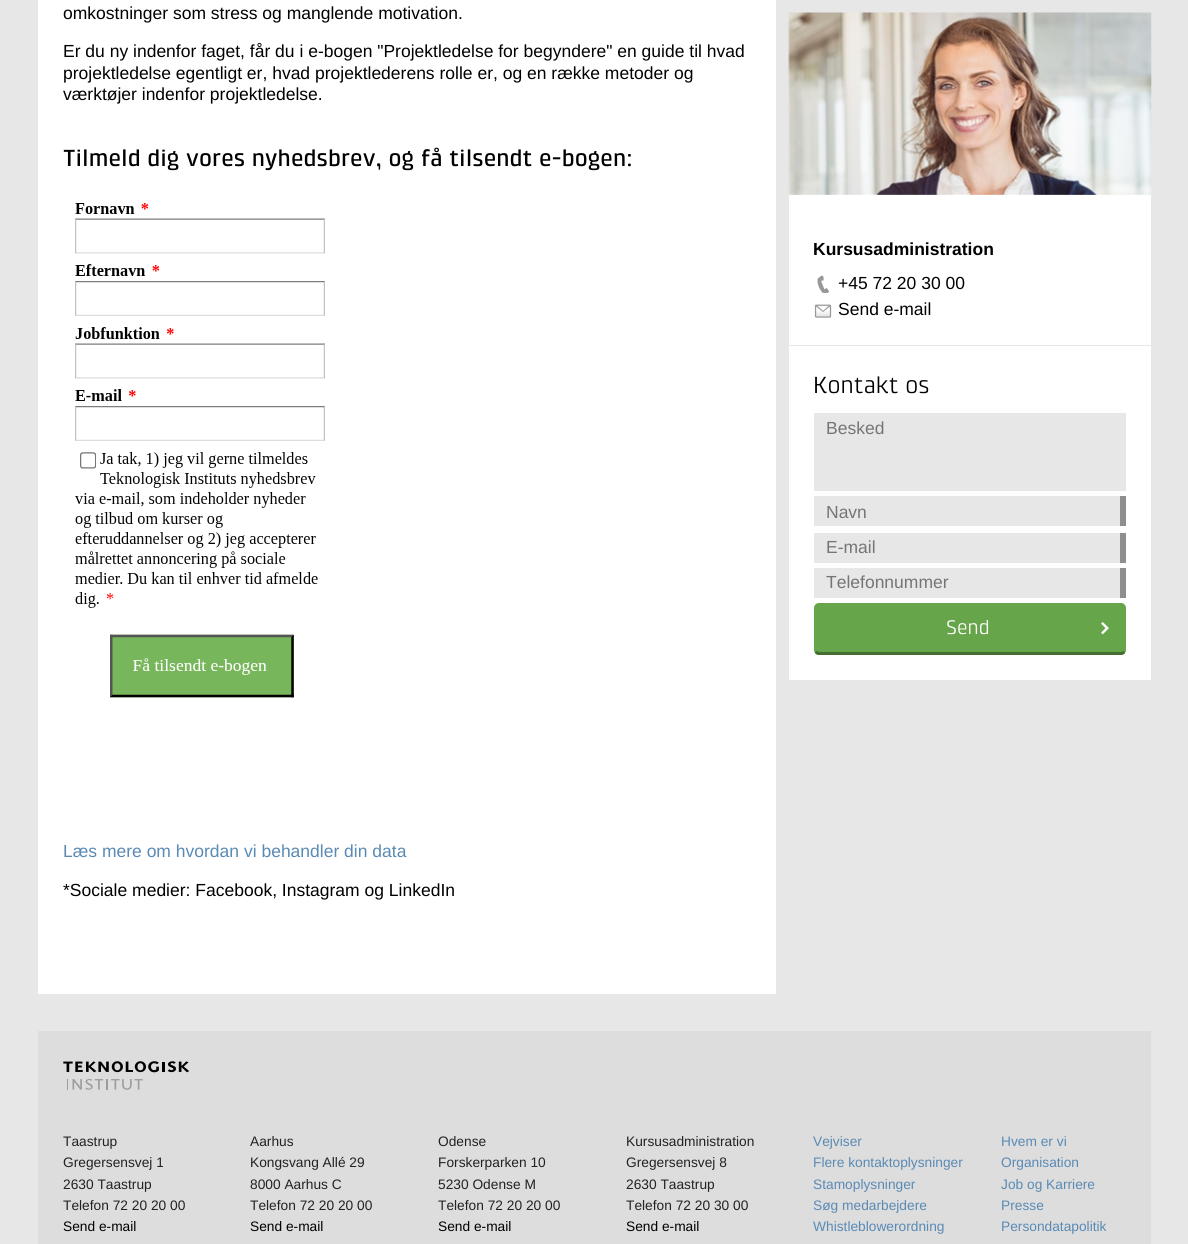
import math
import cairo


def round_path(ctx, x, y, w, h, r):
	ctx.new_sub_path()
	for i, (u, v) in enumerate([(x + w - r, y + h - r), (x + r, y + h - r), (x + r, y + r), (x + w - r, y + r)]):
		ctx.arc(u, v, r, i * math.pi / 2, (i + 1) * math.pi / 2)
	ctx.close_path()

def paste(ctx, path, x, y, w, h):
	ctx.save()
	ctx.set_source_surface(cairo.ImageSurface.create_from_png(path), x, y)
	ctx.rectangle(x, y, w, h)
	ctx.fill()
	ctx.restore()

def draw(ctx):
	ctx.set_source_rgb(0.906, 0.906, 0.906)
	ctx.paint()
	ctx.set_source_rgb(1, 1, 1)
	ctx.rectangle(38, 0, 738, 994)
	ctx.fill()
	ctx.select_font_face('Liberation Sans')
	ctx.set_font_size(17.5)
	ctx.set_source_rgb(0, 0, 0)
	for x, y, s in [
		(63, 19, 'omkostninger som stress og manglende motivation.'),
		(63, 57, 'Er du ny indenfor faget, får du i e-bogen "Projektledelse for begyndere" en guide til hvad'),
		(63, 79, 'projektledelse egentligt er, hvad projektlederens rolle er, og en række metoder og'),
		(63, 100, 'værktøjer indenfor projektledelse.'),
	]:
		ctx.move_to(x, y)
		ctx.show_text(s)
	ctx.select_font_face('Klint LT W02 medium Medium')
	ctx.set_font_size(23.75)
	ctx.move_to(63, 166)
	ctx.show_text('Tilmeld dig vores nyhedsbrev, og få tilsendt e-bogen:')
	paste(ctx, 'media/1.png', 75, 203, 250, 495)
	ctx.select_font_face('Liberation Sans')
	ctx.set_font_size(17.5)
	ctx.set_source_rgb(0.353, 0.541, 0.706)
	ctx.move_to(63, 857)
	ctx.show_text('Læs mere om hvordan vi behandler din data')
	ctx.set_source_rgb(0, 0, 0)
	ctx.move_to(63, 896)
	ctx.show_text('*Sociale medier: Facebook, Instagram og LinkedIn')
	ctx.set_source_rgb(1, 1, 1)
	ctx.rectangle(789, 13, 362, 332)
	ctx.fill()
	paste(ctx, 'media/2.png', 788, 12, 364, 183)
	ctx.select_font_face('Liberation Sans', cairo.FONT_SLANT_NORMAL, cairo.FONT_WEIGHT_BOLD)
	ctx.set_source_rgb(0, 0, 0)
	ctx.move_to(813, 255)
	ctx.show_text('Kursusadministration')
	paste(ctx, 'media/3.png', 817, 275, 13, 18)
	ctx.select_font_face('Liberation Sans')
	ctx.move_to(838, 289)
	ctx.show_text('+45 72 20 30 00')
	paste(ctx, 'media/4.png', 814, 304, 18, 14)
	ctx.move_to(838, 315)
	ctx.show_text('Send e-mail')
	ctx.set_source_rgb(1, 1, 1)
	ctx.rectangle(789, 346, 362, 334)
	ctx.fill()
	ctx.select_font_face('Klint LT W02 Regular')
	ctx.set_font_size(23.75)
	ctx.set_source_rgb(0, 0, 0)
	ctx.move_to(813, 393)
	ctx.show_text('Kontakt os')
	ctx.set_source_rgb(0.906, 0.906, 0.906)
	ctx.rectangle(814, 413, 312, 78)
	ctx.fill()
	ctx.select_font_face('Liberation Sans')
	ctx.set_font_size(17.5)
	ctx.set_source_rgb(0.459, 0.459, 0.459)
	ctx.move_to(826, 434)
	ctx.show_text('Besked')
	ctx.set_source_rgb(0.906, 0.906, 0.906)
	ctx.rectangle(814, 496, 306, 30)
	ctx.fill()
	ctx.set_source_rgb(0.557, 0.557, 0.557)
	ctx.rectangle(1120, 496, 6, 30)
	ctx.fill()
	ctx.set_source_rgb(0.459, 0.459, 0.459)
	ctx.move_to(826, 518)
	ctx.show_text('Navn')
	ctx.set_source_rgb(0.906, 0.906, 0.906)
	ctx.rectangle(814, 533, 306, 30)
	ctx.fill()
	ctx.set_source_rgb(0.557, 0.557, 0.557)
	ctx.rectangle(1120, 533, 6, 30)
	ctx.fill()
	ctx.set_source_rgb(0.459, 0.459, 0.459)
	ctx.move_to(826, 553)
	ctx.show_text('E-mail')
	ctx.set_source_rgb(0.906, 0.906, 0.906)
	ctx.rectangle(814, 568, 306, 30)
	ctx.fill()
	ctx.set_source_rgb(0.557, 0.557, 0.557)
	ctx.rectangle(1120, 568, 6, 30)
	ctx.fill()
	ctx.set_source_rgb(0.459, 0.459, 0.459)
	ctx.move_to(826, 588)
	ctx.show_text('Telefonnummer')
	ctx.set_source_rgb(0.4, 0.647, 0.29)
	round_path(ctx, 814, 603, 312, 52, 5)
	ctx.fill()
	paste(ctx, 'media/5.png', 1101, 622, 8, 13)
	ctx.set_source_rgb(0.271, 0.435, 0.196)
	ctx.new_path()
	ctx.move_to(819, 655)
	ctx.line_to(1121, 655)
	ctx.curve_to(1123, 655, 1124, 654, 1125, 653)
	ctx.line_to(1124, 651)
	ctx.line_to(1121, 652)
	ctx.line_to(819, 652)
	ctx.line_to(816, 651)
	ctx.line_to(815, 653)
	ctx.curve_to(816, 654, 817, 655, 819, 655)
	ctx.close_path()
	ctx.fill()
	ctx.select_font_face('Klint LT W02 Regular')
	ctx.set_font_size(20)
	ctx.set_source_rgb(1, 1, 1)
	ctx.move_to(946, 634)
	ctx.show_text('Send')
	ctx.set_source_rgb(0.867, 0.867, 0.867)
	ctx.rectangle(38, 1031, 1113, 213)
	ctx.fill()
	paste(ctx, 'media/6.png', 63, 1061, 127, 29)
	ctx.select_font_face('Liberation Sans')
	ctx.set_font_size(13.75)
	ctx.set_source_rgb(0.133, 0.133, 0.133)
	for x, y, s in [
		(63, 1146, 'Taastrup'),
		(63, 1167, 'Gregersensvej 1'),
		(63, 1189, '2630 Taastrup'),
		(63, 1210, 'Telefon 72 20 20 00'),
	]:
		ctx.move_to(x, y)
		ctx.show_text(s)
	ctx.set_source_rgb(0, 0, 0)
	ctx.move_to(63, 1231)
	ctx.show_text('Send e-mail')
	ctx.set_source_rgb(0.133, 0.133, 0.133)
	for x, y, s in [
		(250, 1146, 'Aarhus'),
		(250, 1167, 'Kongsvang Allé 29'),
		(250, 1189, '8000 Aarhus C'),
		(250, 1210, 'Telefon 72 20 20 00'),
	]:
		ctx.move_to(x, y)
		ctx.show_text(s)
	ctx.set_source_rgb(0, 0, 0)
	ctx.move_to(250, 1231)
	ctx.show_text('Send e-mail')
	ctx.set_source_rgb(0.133, 0.133, 0.133)
	for x, y, s in [
		(438, 1146, 'Odense'),
		(438, 1167, 'Forskerparken 10'),
		(438, 1189, '5230 Odense M'),
		(438, 1210, 'Telefon 72 20 20 00'),
	]:
		ctx.move_to(x, y)
		ctx.show_text(s)
	ctx.set_source_rgb(0, 0, 0)
	ctx.move_to(438, 1231)
	ctx.show_text('Send e-mail')
	ctx.set_source_rgb(0.133, 0.133, 0.133)
	for x, y, s in [
		(626, 1146, 'Kursusadministration'),
		(626, 1167, 'Gregersensvej 8'),
		(626, 1189, '2630 Taastrup'),
		(626, 1210, 'Telefon 72 20 30 00'),
	]:
		ctx.move_to(x, y)
		ctx.show_text(s)
	ctx.set_source_rgb(0, 0, 0)
	ctx.move_to(626, 1231)
	ctx.show_text('Send e-mail')
	ctx.set_source_rgb(0.353, 0.541, 0.706)
	for x, y, s in [
		(813, 1146, 'Vejviser'),
		(813, 1167, 'Flere kontaktoplysninger'),
		(813, 1189, 'Stamoplysninger'),
		(813, 1210, 'Søg medarbejdere'),
		(813, 1231, 'Whistleblowerordning'),
		(1001, 1146, 'Hvem er vi'),
		(1001, 1167, 'Organisation'),
		(1001, 1189, 'Job og Karriere'),
		(1001, 1210, 'Presse'),
		(1001, 1231, 'Persondatapolitik'),
	]:
		ctx.move_to(x, y)
		ctx.show_text(s)


surface = cairo.ImageSurface(cairo.FORMAT_RGB24, 1188, 1244)
ctx = cairo.Context(surface)
options = cairo.FontOptions()
options.set_hint_metrics(cairo.HINT_METRICS_OFF)
options.set_hint_style(cairo.HINT_STYLE_NONE)
ctx.set_font_options(options)
ctx.set_miter_limit(4)
draw(ctx)
surface.write_to_png('image.png')
